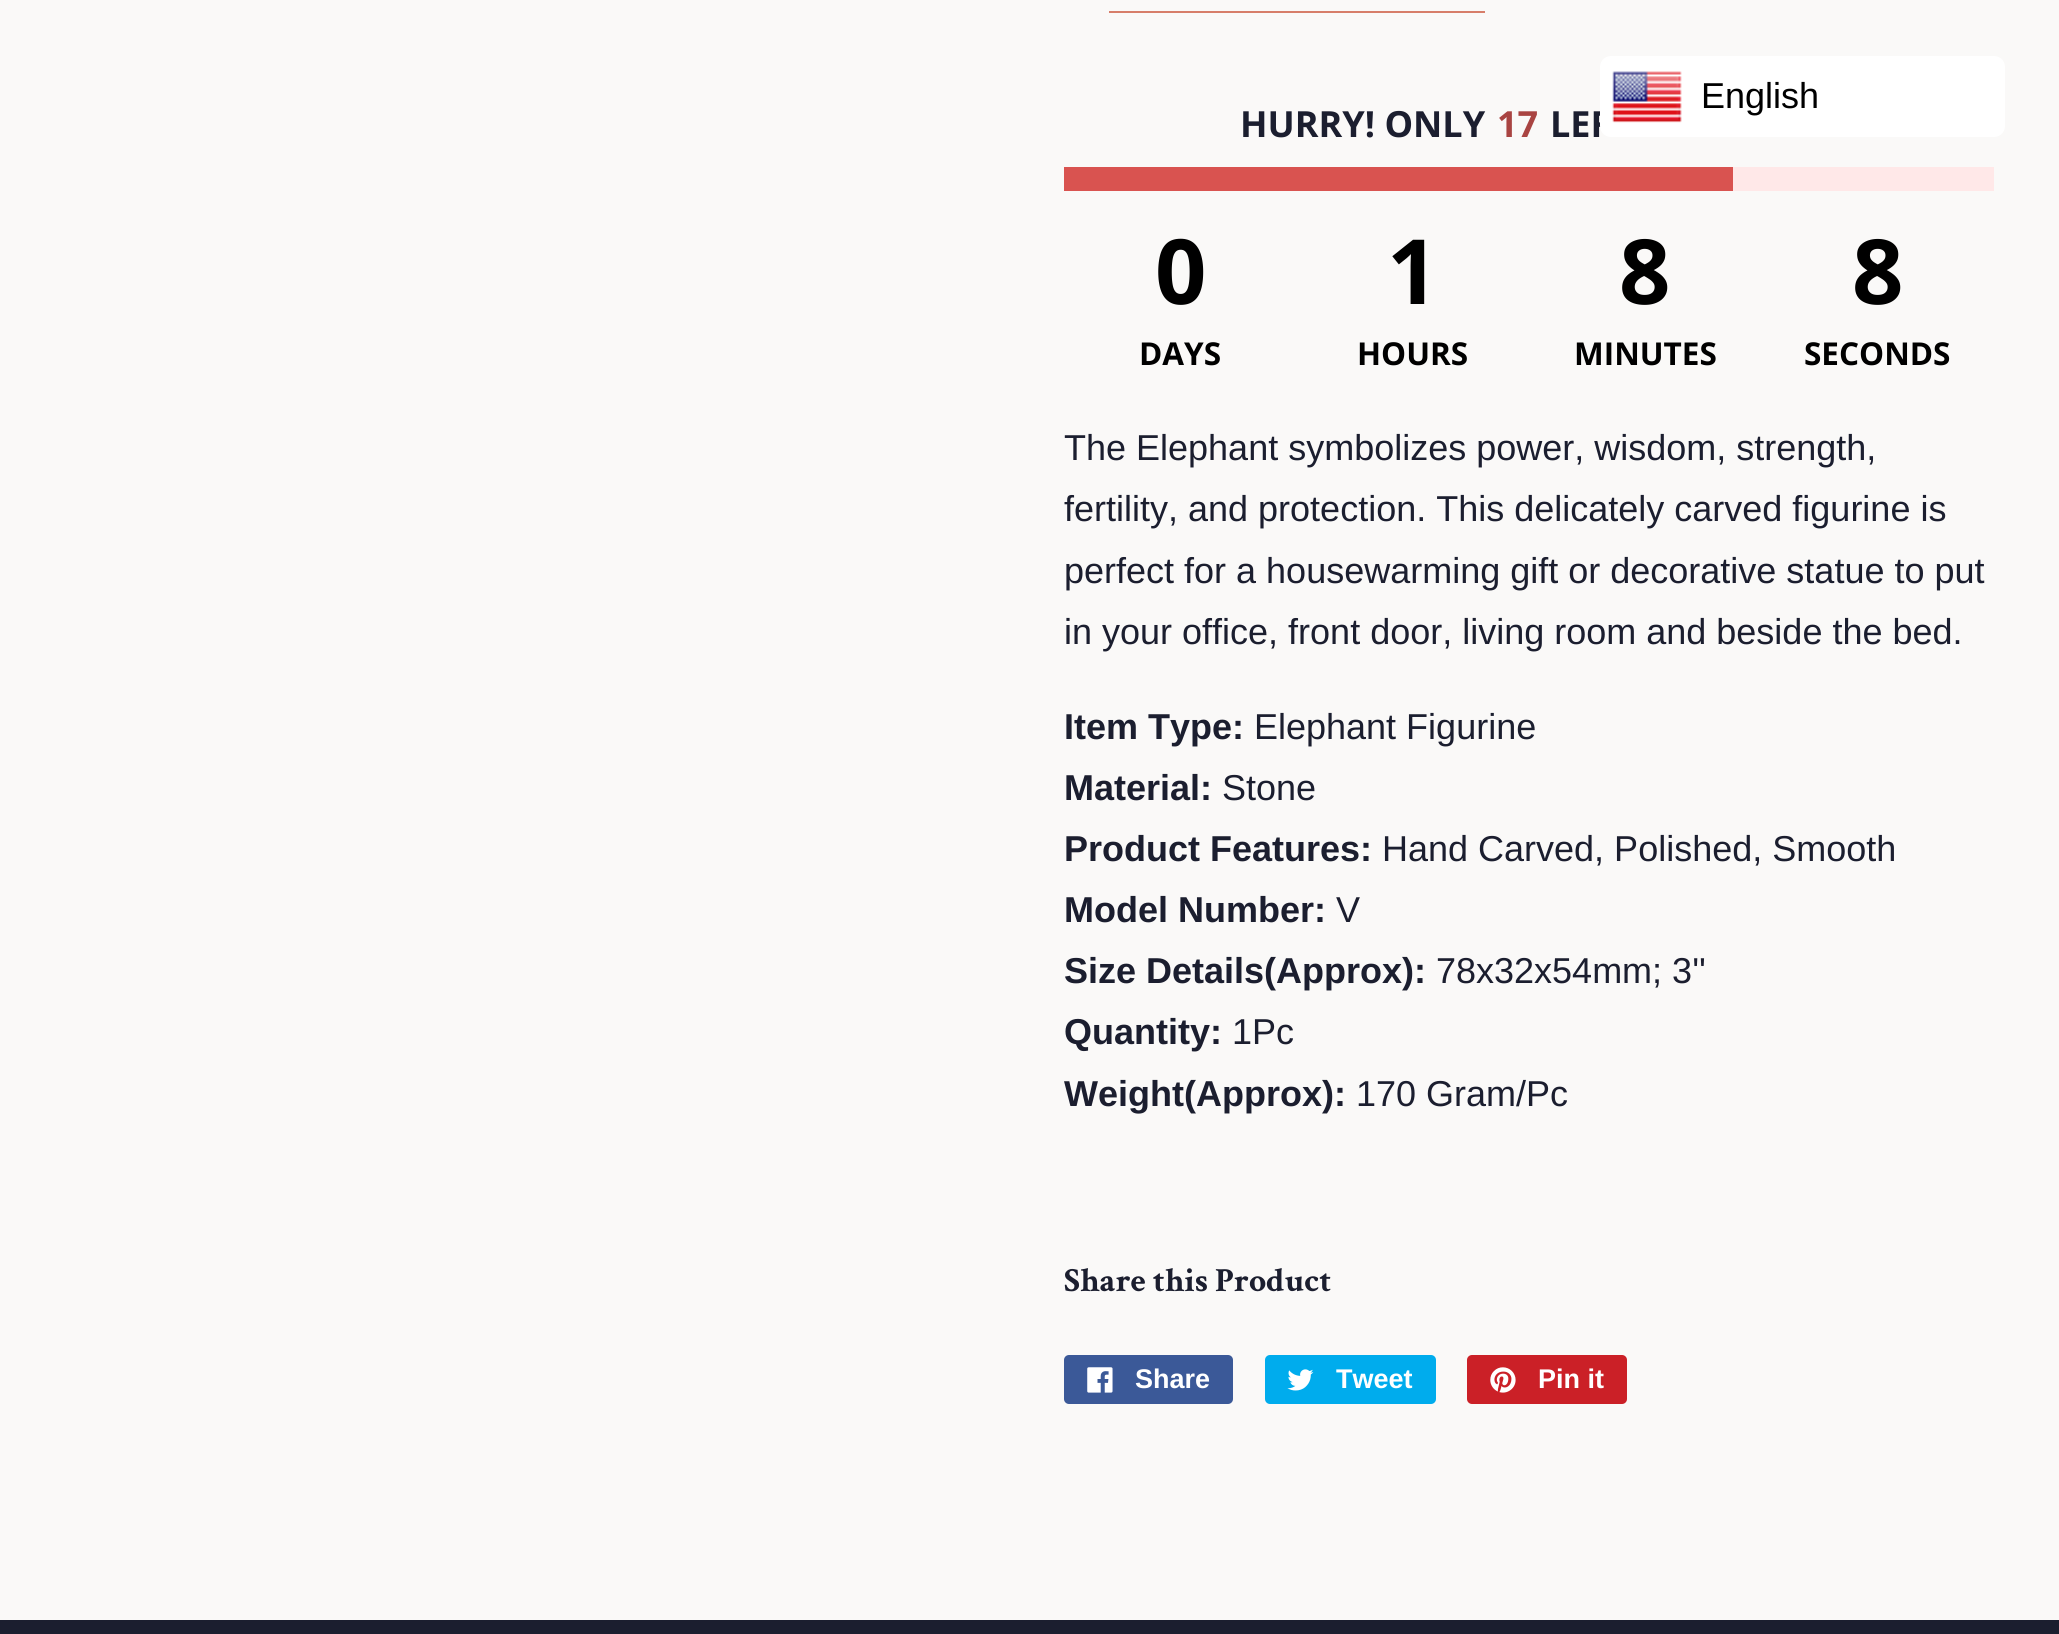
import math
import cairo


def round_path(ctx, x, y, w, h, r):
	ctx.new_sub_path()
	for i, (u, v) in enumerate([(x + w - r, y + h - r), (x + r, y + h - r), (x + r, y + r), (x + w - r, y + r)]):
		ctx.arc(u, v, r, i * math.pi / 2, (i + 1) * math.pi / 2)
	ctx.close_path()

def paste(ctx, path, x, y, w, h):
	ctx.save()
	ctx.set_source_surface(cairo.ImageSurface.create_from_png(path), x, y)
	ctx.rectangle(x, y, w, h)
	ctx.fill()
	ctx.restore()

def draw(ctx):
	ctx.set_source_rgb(0.98, 0.976, 0.969)
	ctx.paint()
	ctx.select_font_face('Open Sans', cairo.FONT_SLANT_NORMAL, cairo.FONT_WEIGHT_BOLD)
	ctx.set_font_size(36)
	ctx.set_source_rgb(0.106, 0.118, 0.184)
	ctx.move_to(1550, 137)
	ctx.show_text('LEF')
	ctx.set_source_rgb(1, 1, 1)
	round_path(ctx, 1600, 56, 405, 81, 11)
	ctx.fill()
	paste(ctx, 'media/1.png', 1612, 71, 70, 52)
	ctx.select_font_face('Liberation Sans')
	ctx.set_source_rgb(0, 0, 0)
	ctx.move_to(1701, 108)
	ctx.show_text('English')
	ctx.set_source_rgb(0.843, 0.494, 0.416)
	ctx.rectangle(1109, 11, 376, 2)
	ctx.fill()
	ctx.select_font_face('Open Sans', cairo.FONT_SLANT_NORMAL, cairo.FONT_WEIGHT_BOLD)
	ctx.set_source_rgb(0.106, 0.118, 0.184)
	ctx.move_to(1240, 137)
	ctx.show_text('HURRY! ONLY')
	ctx.set_source_rgb(0.663, 0.267, 0.259)
	ctx.move_to(1497, 137)
	ctx.show_text('17')
	ctx.set_source_rgb(1, 0.91, 0.91)
	ctx.rectangle(1733, 167, 261, 24)
	ctx.fill()
	ctx.set_source_rgb(0.851, 0.325, 0.314)
	ctx.rectangle(1064, 167, 669, 24)
	ctx.fill()
	ctx.set_font_size(90)
	ctx.set_source_rgb(0, 0, 0)
	ctx.move_to(1155, 304)
	ctx.show_text('0')
	ctx.set_font_size(31.5)
	ctx.move_to(1139, 365)
	ctx.show_text('DAYS')
	ctx.set_font_size(90)
	ctx.move_to(1387, 304)
	ctx.show_text('1')
	ctx.set_font_size(31.5)
	ctx.move_to(1357, 365)
	ctx.show_text('HOURS')
	ctx.set_font_size(90)
	ctx.move_to(1619, 304)
	ctx.show_text('8')
	ctx.set_font_size(31.5)
	ctx.move_to(1574, 365)
	ctx.show_text('MINUTES')
	ctx.set_font_size(90)
	ctx.move_to(1852, 304)
	ctx.show_text('8')
	ctx.set_font_size(31.5)
	ctx.move_to(1804, 365)
	ctx.show_text('SECONDS')
	ctx.select_font_face('Liberation Sans')
	ctx.set_font_size(36)
	ctx.set_source_rgb(0.106, 0.118, 0.184)
	for x, y, s in [
		(1064, 460, 'The Elephant symbolizes power, wisdom, strength,'),
		(1064, 521, 'fertility, and protection. This delicately carved figurine is'),
		(1064, 583, 'perfect for a housewarming gift or decorative statue to put'),
		(1064, 644, 'in your office, front door, living room and beside the bed.'),
	]:
		ctx.move_to(x, y)
		ctx.show_text(s)
	ctx.select_font_face('Liberation Sans', cairo.FONT_SLANT_NORMAL, cairo.FONT_WEIGHT_BOLD)
	ctx.move_to(1064, 739)
	ctx.show_text('Item Type:')
	ctx.select_font_face('Liberation Sans')
	ctx.move_to(1254, 739)
	ctx.show_text('Elephant Figurine')
	ctx.select_font_face('Liberation Sans', cairo.FONT_SLANT_NORMAL, cairo.FONT_WEIGHT_BOLD)
	ctx.move_to(1064, 800)
	ctx.show_text('Material:')
	ctx.select_font_face('Liberation Sans')
	ctx.move_to(1222, 800)
	ctx.show_text('Stone')
	ctx.select_font_face('Liberation Sans', cairo.FONT_SLANT_NORMAL, cairo.FONT_WEIGHT_BOLD)
	ctx.move_to(1064, 861)
	ctx.show_text('Product Features:')
	ctx.select_font_face('Liberation Sans')
	ctx.move_to(1382, 861)
	ctx.show_text('Hand Carved, Polished, Smooth')
	ctx.select_font_face('Liberation Sans', cairo.FONT_SLANT_NORMAL, cairo.FONT_WEIGHT_BOLD)
	ctx.move_to(1064, 922)
	ctx.show_text('Model Number:')
	ctx.select_font_face('Liberation Sans')
	ctx.move_to(1336, 922)
	ctx.show_text('V')
	ctx.select_font_face('Liberation Sans', cairo.FONT_SLANT_NORMAL, cairo.FONT_WEIGHT_BOLD)
	ctx.move_to(1064, 983)
	ctx.show_text('Size Details(Approx):')
	ctx.select_font_face('Liberation Sans')
	ctx.move_to(1436, 983)
	ctx.show_text('78x32x54mm; 3\'\'')
	ctx.select_font_face('Liberation Sans', cairo.FONT_SLANT_NORMAL, cairo.FONT_WEIGHT_BOLD)
	ctx.move_to(1064, 1044)
	ctx.show_text('Quantity:')
	ctx.select_font_face('Liberation Sans')
	ctx.move_to(1232, 1044)
	ctx.show_text('1Pc')
	ctx.select_font_face('Liberation Sans', cairo.FONT_SLANT_NORMAL, cairo.FONT_WEIGHT_BOLD)
	ctx.move_to(1064, 1106)
	ctx.show_text('Weight(Approx):')
	ctx.select_font_face('Liberation Sans')
	ctx.move_to(1356, 1106)
	ctx.show_text('170 Gram/Pc')
	ctx.select_font_face('Crimson Text', cairo.FONT_SLANT_NORMAL, cairo.FONT_WEIGHT_BOLD)
	ctx.set_font_size(33.75)
	ctx.move_to(1064, 1291)
	ctx.show_text('Share this Product')
	ctx.set_source_rgb(0.231, 0.349, 0.596)
	round_path(ctx, 1064, 1355, 169, 49, 5)
	ctx.fill()
	paste(ctx, 'media/2.png', 1087, 1367, 26, 26)
	ctx.select_font_face('Liberation Sans', cairo.FONT_SLANT_NORMAL, cairo.FONT_WEIGHT_BOLD)
	ctx.set_font_size(27)
	ctx.set_source_rgb(1, 1, 1)
	ctx.move_to(1135, 1388)
	ctx.show_text('Share')
	ctx.set_source_rgb(0, 0.675, 0.929)
	round_path(ctx, 1265, 1355, 171, 49, 5)
	ctx.fill()
	paste(ctx, 'media/3.png', 1287, 1369, 27, 22)
	ctx.set_source_rgb(1, 1, 1)
	ctx.move_to(1336, 1388)
	ctx.show_text('Tweet')
	ctx.set_source_rgb(0.796, 0.125, 0.153)
	round_path(ctx, 1467, 1355, 160, 49, 5)
	ctx.fill()
	paste(ctx, 'media/4.png', 1490, 1367, 26, 26)
	ctx.set_source_rgb(1, 1, 1)
	ctx.move_to(1538, 1388)
	ctx.show_text('Pin it')
	ctx.set_source_rgb(0.106, 0.118, 0.184)
	ctx.rectangle(0, 1620, 2059, 14)
	ctx.fill()


surface = cairo.ImageSurface(cairo.FORMAT_RGB24, 2059, 1634)
ctx = cairo.Context(surface)
options = cairo.FontOptions()
options.set_hint_metrics(cairo.HINT_METRICS_OFF)
options.set_hint_style(cairo.HINT_STYLE_NONE)
ctx.set_font_options(options)
ctx.set_miter_limit(4)
draw(ctx)
surface.write_to_png('image.png')
